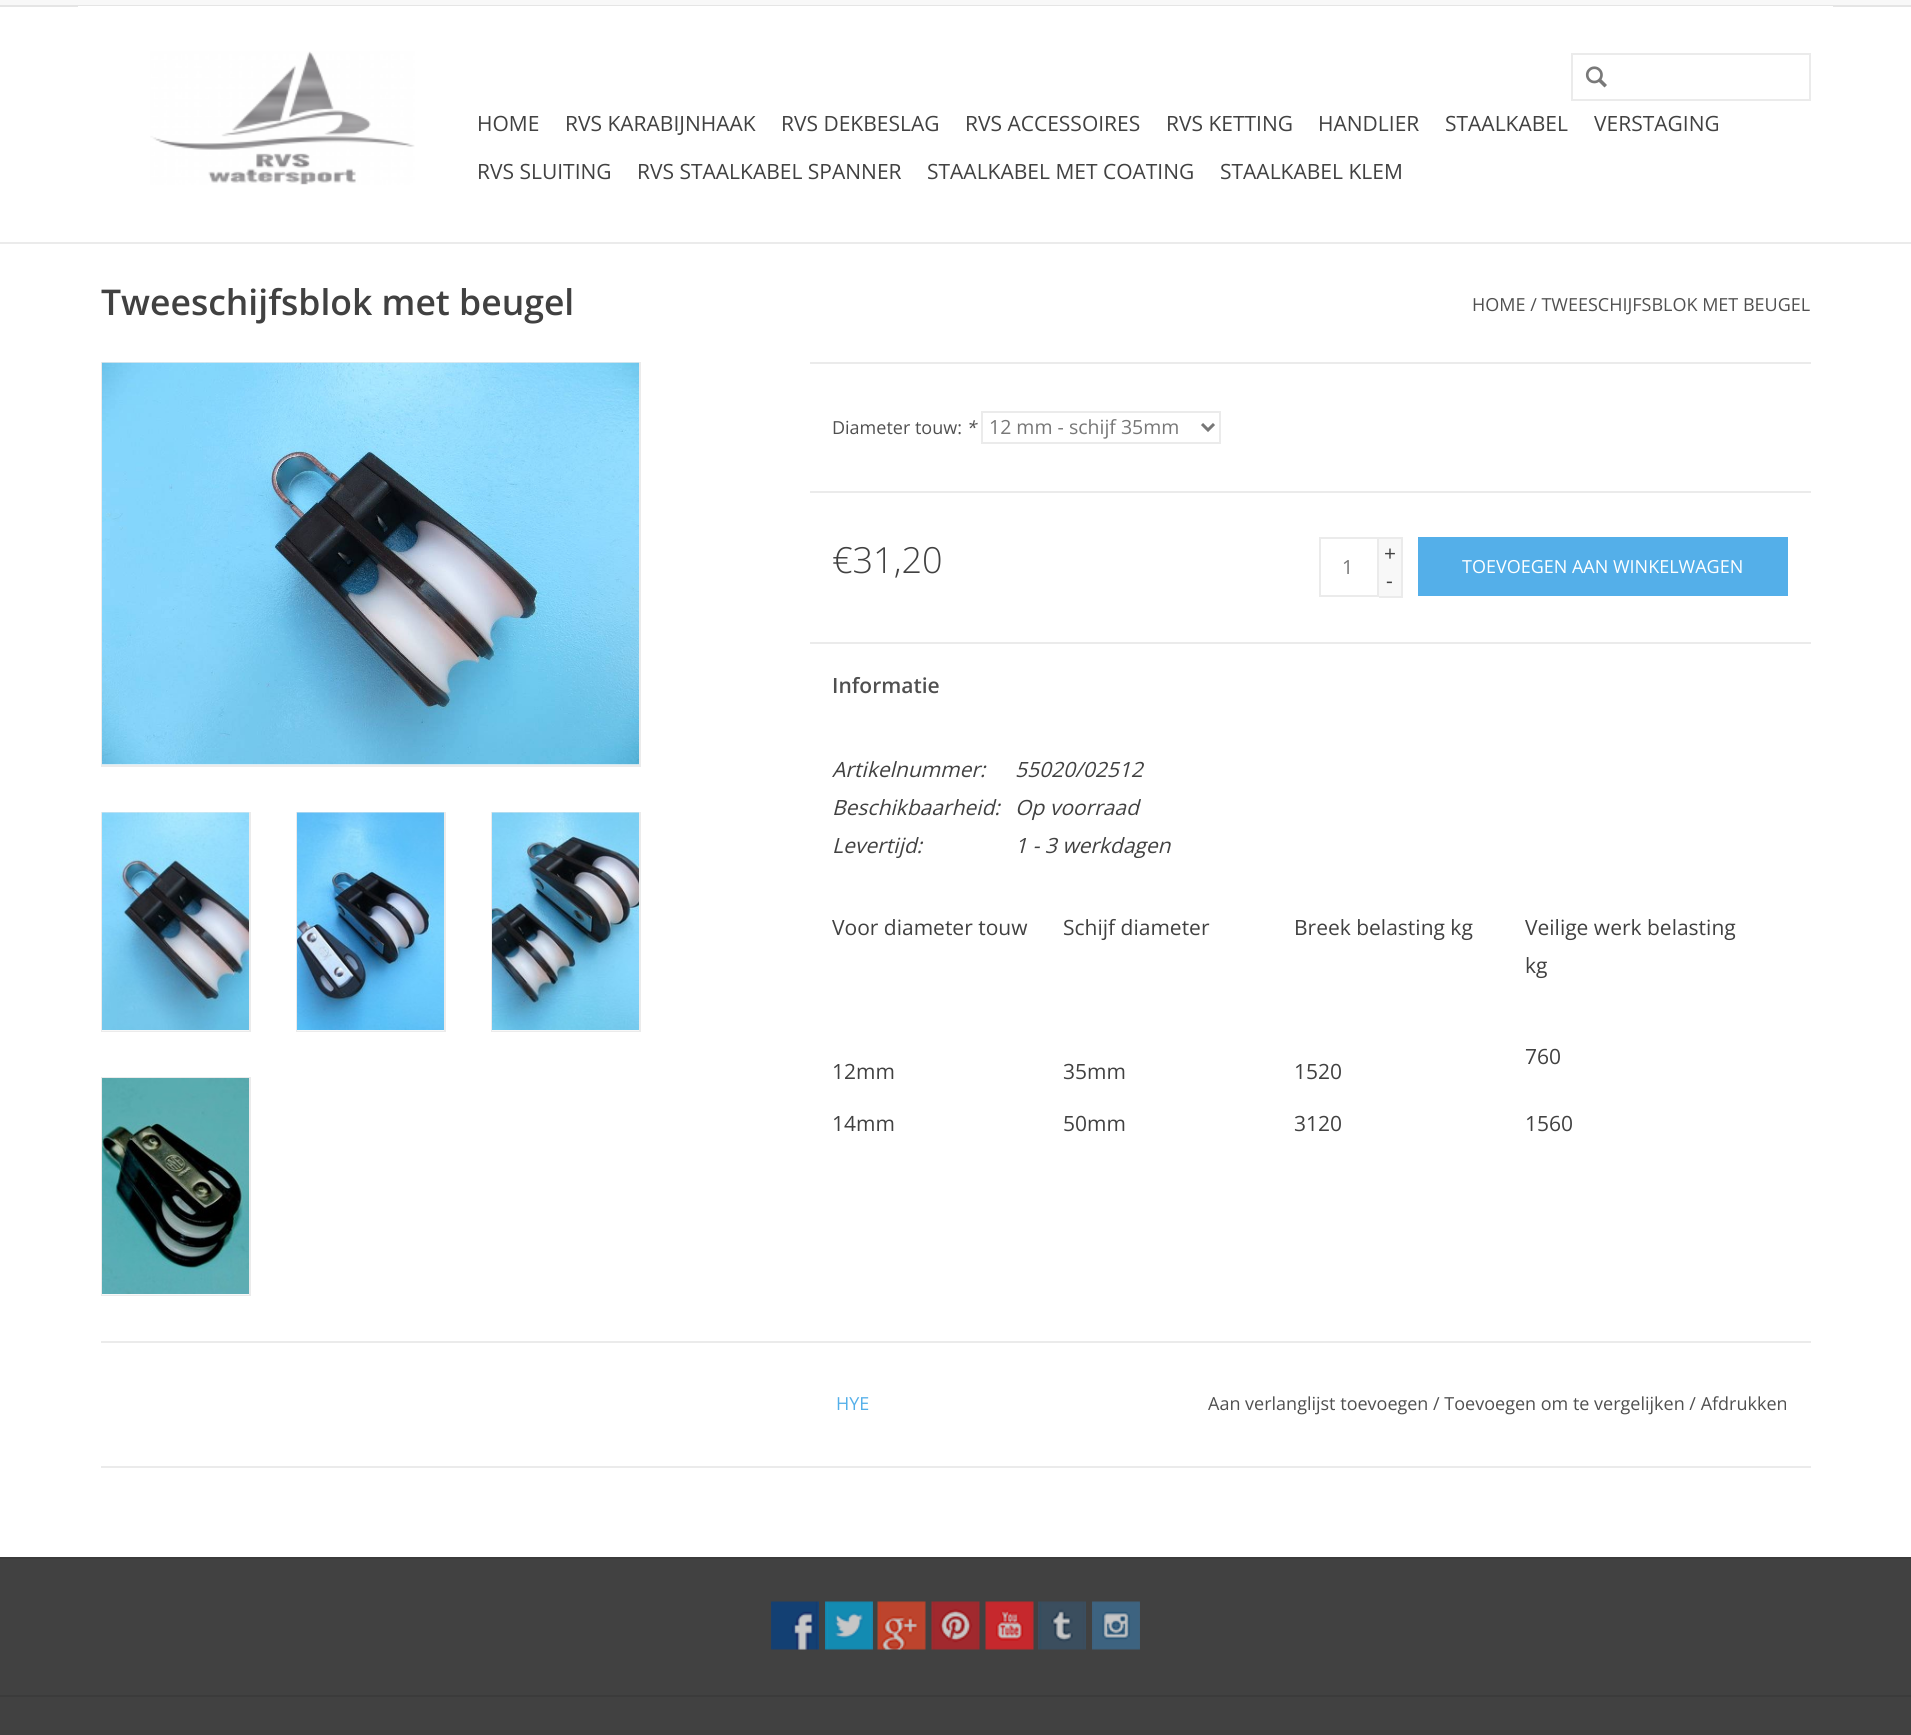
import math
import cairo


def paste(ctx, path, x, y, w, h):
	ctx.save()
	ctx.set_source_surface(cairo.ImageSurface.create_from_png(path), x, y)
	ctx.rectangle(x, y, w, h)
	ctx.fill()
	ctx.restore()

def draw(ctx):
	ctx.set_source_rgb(1, 1, 1)
	ctx.paint()
	ctx.set_source_rgb(0.918, 0.918, 0.918)
	ctx.rectangle(0, 242, 1911, 2)
	ctx.fill()
	ctx.set_source_rgb(0.969, 0.969, 0.969)
	ctx.rectangle(0, 0, 1911, 5)
	ctx.fill()
	ctx.set_source_rgb(0.898, 0.898, 0.898)
	ctx.rectangle(0, 5, 1911, 2)
	ctx.fill()
	ctx.set_source_rgb(1, 1, 1)
	ctx.rectangle(78, 6, 1755, 1)
	ctx.fill()
	paste(ctx, 'media/1.png', 150, 51, 265, 134)
	ctx.rectangle(1572, 54, 238, 46)
	ctx.set_source_rgb(0.918, 0.918, 0.918)
	ctx.stroke()
	paste(ctx, 'media/2.png', 1585, 66, 22, 22)
	ctx.select_font_face('Open Sans')
	ctx.set_font_size(21)
	ctx.set_source_rgb(0.255, 0.255, 0.255)
	for x, y, s in [
		(477, 131, 'HOME'),
		(565, 131, 'RVS KARABIJNHAAK'),
		(781, 131, 'RVS DEKBESLAG'),
		(965, 131, 'RVS ACCESSOIRES'),
		(1166, 131, 'RVS KETTING'),
		(1318, 131, 'HANDLIER'),
		(1445, 131, 'STAALKABEL'),
		(1594, 131, 'VERSTAGING'),
		(477, 179, 'RVS SLUITING'),
		(637, 179, 'RVS STAALKABEL SPANNER'),
		(927, 179, 'STAALKABEL MET COATING'),
		(1220, 179, 'STAALKABEL KLEM'),
	]:
		ctx.move_to(x, y)
		ctx.show_text(s)
	ctx.select_font_face('Open Sans SemiBold')
	ctx.set_font_size(35.5)
	ctx.move_to(101, 315)
	ctx.show_text('Tweeschijfsblok met beugel')
	ctx.select_font_face('Open Sans')
	ctx.set_font_size(18)
	ctx.set_source_rgb(0.314, 0.314, 0.314)
	ctx.move_to(1472, 311)
	ctx.show_text('HOME / TWEESCHIJFSBLOK MET BEUGEL')
	ctx.rectangle(102, 363, 538, 403)
	ctx.set_source_rgb(0.918, 0.918, 0.918)
	ctx.stroke()
	ctx.set_source_rgb(0.969, 0.969, 0.969)
	ctx.rectangle(102, 764, 537, 1)
	ctx.fill()
	paste(ctx, 'media/3.png', 102, 362, 537, 403)
	ctx.rectangle(102, 813, 148, 218)
	ctx.set_source_rgb(0.918, 0.918, 0.918)
	ctx.stroke()
	ctx.set_source_rgb(0.969, 0.969, 0.969)
	ctx.rectangle(102, 1030, 147, 1)
	ctx.fill()
	paste(ctx, 'media/4.png', 102, 812, 147, 218)
	ctx.rectangle(297, 813, 148, 218)
	ctx.set_source_rgb(0.918, 0.918, 0.918)
	ctx.stroke()
	ctx.set_source_rgb(0.969, 0.969, 0.969)
	ctx.rectangle(297, 1030, 147, 1)
	ctx.fill()
	paste(ctx, 'media/5.png', 297, 812, 147, 218)
	ctx.rectangle(492, 813, 148, 218)
	ctx.set_source_rgb(0.918, 0.918, 0.918)
	ctx.stroke()
	ctx.set_source_rgb(0.969, 0.969, 0.969)
	ctx.rectangle(492, 1030, 147, 1)
	ctx.fill()
	paste(ctx, 'media/6.png', 492, 812, 147, 218)
	ctx.rectangle(102, 1078, 148, 217)
	ctx.set_source_rgb(0.918, 0.918, 0.918)
	ctx.stroke()
	ctx.set_source_rgb(0.969, 0.969, 0.969)
	ctx.rectangle(102, 1294, 147, 1)
	ctx.fill()
	paste(ctx, 'media/7.png', 102, 1078, 147, 216)
	ctx.set_source_rgb(0.918, 0.918, 0.918)
	ctx.rectangle(810, 362, 1001, 2)
	ctx.fill()
	ctx.set_source_rgb(0.314, 0.314, 0.314)
	ctx.move_to(832, 434)
	ctx.show_text('Diameter touw:')
	ctx.select_font_face('Open Sans', cairo.FONT_SLANT_ITALIC)
	ctx.move_to(966, 434)
	ctx.show_text('*')
	ctx.rectangle(982, 412, 238, 31)
	ctx.set_source_rgb(0.918, 0.918, 0.918)
	ctx.stroke()
	ctx.new_path()
	ctx.move_to(1202, 424)
	ctx.line_to(1208, 430)
	ctx.line_to(1214, 424)
	ctx.set_source_rgb(0.467, 0.467, 0.467)
	ctx.set_line_width(3)
	ctx.stroke()
	ctx.select_font_face('Open Sans')
	ctx.set_font_size(19.5)
	ctx.move_to(989, 434)
	ctx.show_text('12 mm - schijf 35mm')
	ctx.set_source_rgb(0.918, 0.918, 0.918)
	ctx.rectangle(810, 491, 1001, 2)
	ctx.fill()
	ctx.select_font_face('Open Sans Light')
	ctx.set_font_size(36)
	ctx.set_source_rgb(0.255, 0.255, 0.255)
	ctx.move_to(832, 573)
	ctx.show_text('€31,20')
	ctx.rectangle(1320, 538, 58, 58)
	ctx.set_source_rgb(0.918, 0.918, 0.918)
	ctx.set_line_width(2)
	ctx.stroke()
	ctx.select_font_face('Open Sans')
	ctx.set_font_size(19.5)
	ctx.set_source_rgb(0.467, 0.467, 0.467)
	ctx.move_to(1342, 574)
	ctx.show_text('1')
	ctx.set_source_rgb(0.969, 0.969, 0.969)
	ctx.rectangle(1379, 539, 22, 57)
	ctx.fill()
	ctx.set_source_rgb(0.918, 0.918, 0.918)
	ctx.rectangle(1379, 537, 24, 2)
	ctx.rectangle(1401, 537, 2, 60)
	ctx.rectangle(1379, 596, 24, 2)
	ctx.fill()
	ctx.set_font_size(21)
	ctx.set_source_rgb(0.255, 0.255, 0.255)
	ctx.move_to(1384, 561)
	ctx.show_text('+')
	ctx.move_to(1386, 588)
	ctx.show_text('-')
	ctx.set_source_rgb(0.329, 0.686, 0.914)
	ctx.rectangle(1418, 537, 370, 59)
	ctx.fill()
	ctx.set_font_size(18)
	ctx.set_source_rgb(1, 1, 1)
	ctx.move_to(1462, 573)
	ctx.show_text('TOEVOEGEN AAN WINKELWAGEN')
	ctx.set_source_rgb(0.918, 0.918, 0.918)
	ctx.rectangle(810, 642, 1001, 2)
	ctx.fill()
	ctx.select_font_face('Open Sans SemiBold')
	ctx.set_font_size(21)
	ctx.set_source_rgb(0.314, 0.314, 0.314)
	ctx.move_to(832, 693)
	ctx.show_text('Informatie')
	ctx.select_font_face('Open Sans', cairo.FONT_SLANT_ITALIC)
	ctx.set_source_rgb(0.255, 0.255, 0.255)
	for x, y, s in [
		(832, 777, 'Artikelnummer:'),
		(1015, 777, '55020/02512'),
		(832, 815, 'Beschikbaarheid:'),
		(1015, 815, 'Op voorraad'),
		(832, 853, 'Levertijd:'),
		(1015, 853, '1 - 3 werkdagen'),
	]:
		ctx.move_to(x, y)
		ctx.show_text(s)
	ctx.select_font_face('Open Sans')
	for x, y, s in [
		(832, 935, 'Voor diameter touw'),
		(1063, 935, 'Schijf diameter'),
		(1294, 935, 'Breek belasting kg'),
		(1525, 935, 'Veilige werk belasting'),
		(1525, 973, 'kg'),
		(1525, 1064, '760'),
		(832, 1079, '12mm'),
		(1063, 1079, '35mm'),
		(1294, 1079, '1520'),
		(832, 1131, '14mm'),
		(1063, 1131, '50mm'),
		(1294, 1131, '3120'),
		(1525, 1131, '1560'),
	]:
		ctx.move_to(x, y)
		ctx.show_text(s)
	ctx.set_source_rgb(0.918, 0.918, 0.918)
	ctx.rectangle(101, 1341, 1710, 2)
	ctx.fill()
	ctx.rectangle(101, 1466, 1710, 2)
	ctx.fill()
	ctx.set_font_size(18)
	ctx.set_source_rgb(0.329, 0.686, 0.914)
	ctx.move_to(836, 1410)
	ctx.show_text('HYE')
	ctx.set_source_rgb(0.314, 0.314, 0.314)
	ctx.move_to(1208, 1410)
	ctx.show_text('Aan verlanglijst toevoegen / Toevoegen om te vergelijken / Afdrukken')
	ctx.set_source_rgb(0.255, 0.255, 0.255)
	ctx.rectangle(0, 1559, 1911, 176)
	ctx.fill()
	ctx.set_source_rgb(0.231, 0.231, 0.231)
	ctx.rectangle(0, 1557, 1911, 2)
	ctx.fill()
	paste(ctx, 'media/8.png', 771, 1601, 48, 49)
	paste(ctx, 'media/9.png', 825, 1601, 48, 49)
	paste(ctx, 'media/10.png', 877, 1601, 49, 49)
	paste(ctx, 'media/11.png', 931, 1601, 49, 49)
	paste(ctx, 'media/12.png', 985, 1601, 49, 49)
	paste(ctx, 'media/13.png', 1038, 1601, 48, 49)
	paste(ctx, 'media/14.png', 1092, 1601, 48, 49)
	ctx.rectangle(0, 1695, 1911, 2)
	ctx.fill()


surface = cairo.ImageSurface(cairo.FORMAT_RGB24, 1911, 1735)
ctx = cairo.Context(surface)
options = cairo.FontOptions()
options.set_hint_metrics(cairo.HINT_METRICS_OFF)
options.set_hint_style(cairo.HINT_STYLE_NONE)
ctx.set_font_options(options)
ctx.set_miter_limit(4)
draw(ctx)
surface.write_to_png('image.png')
